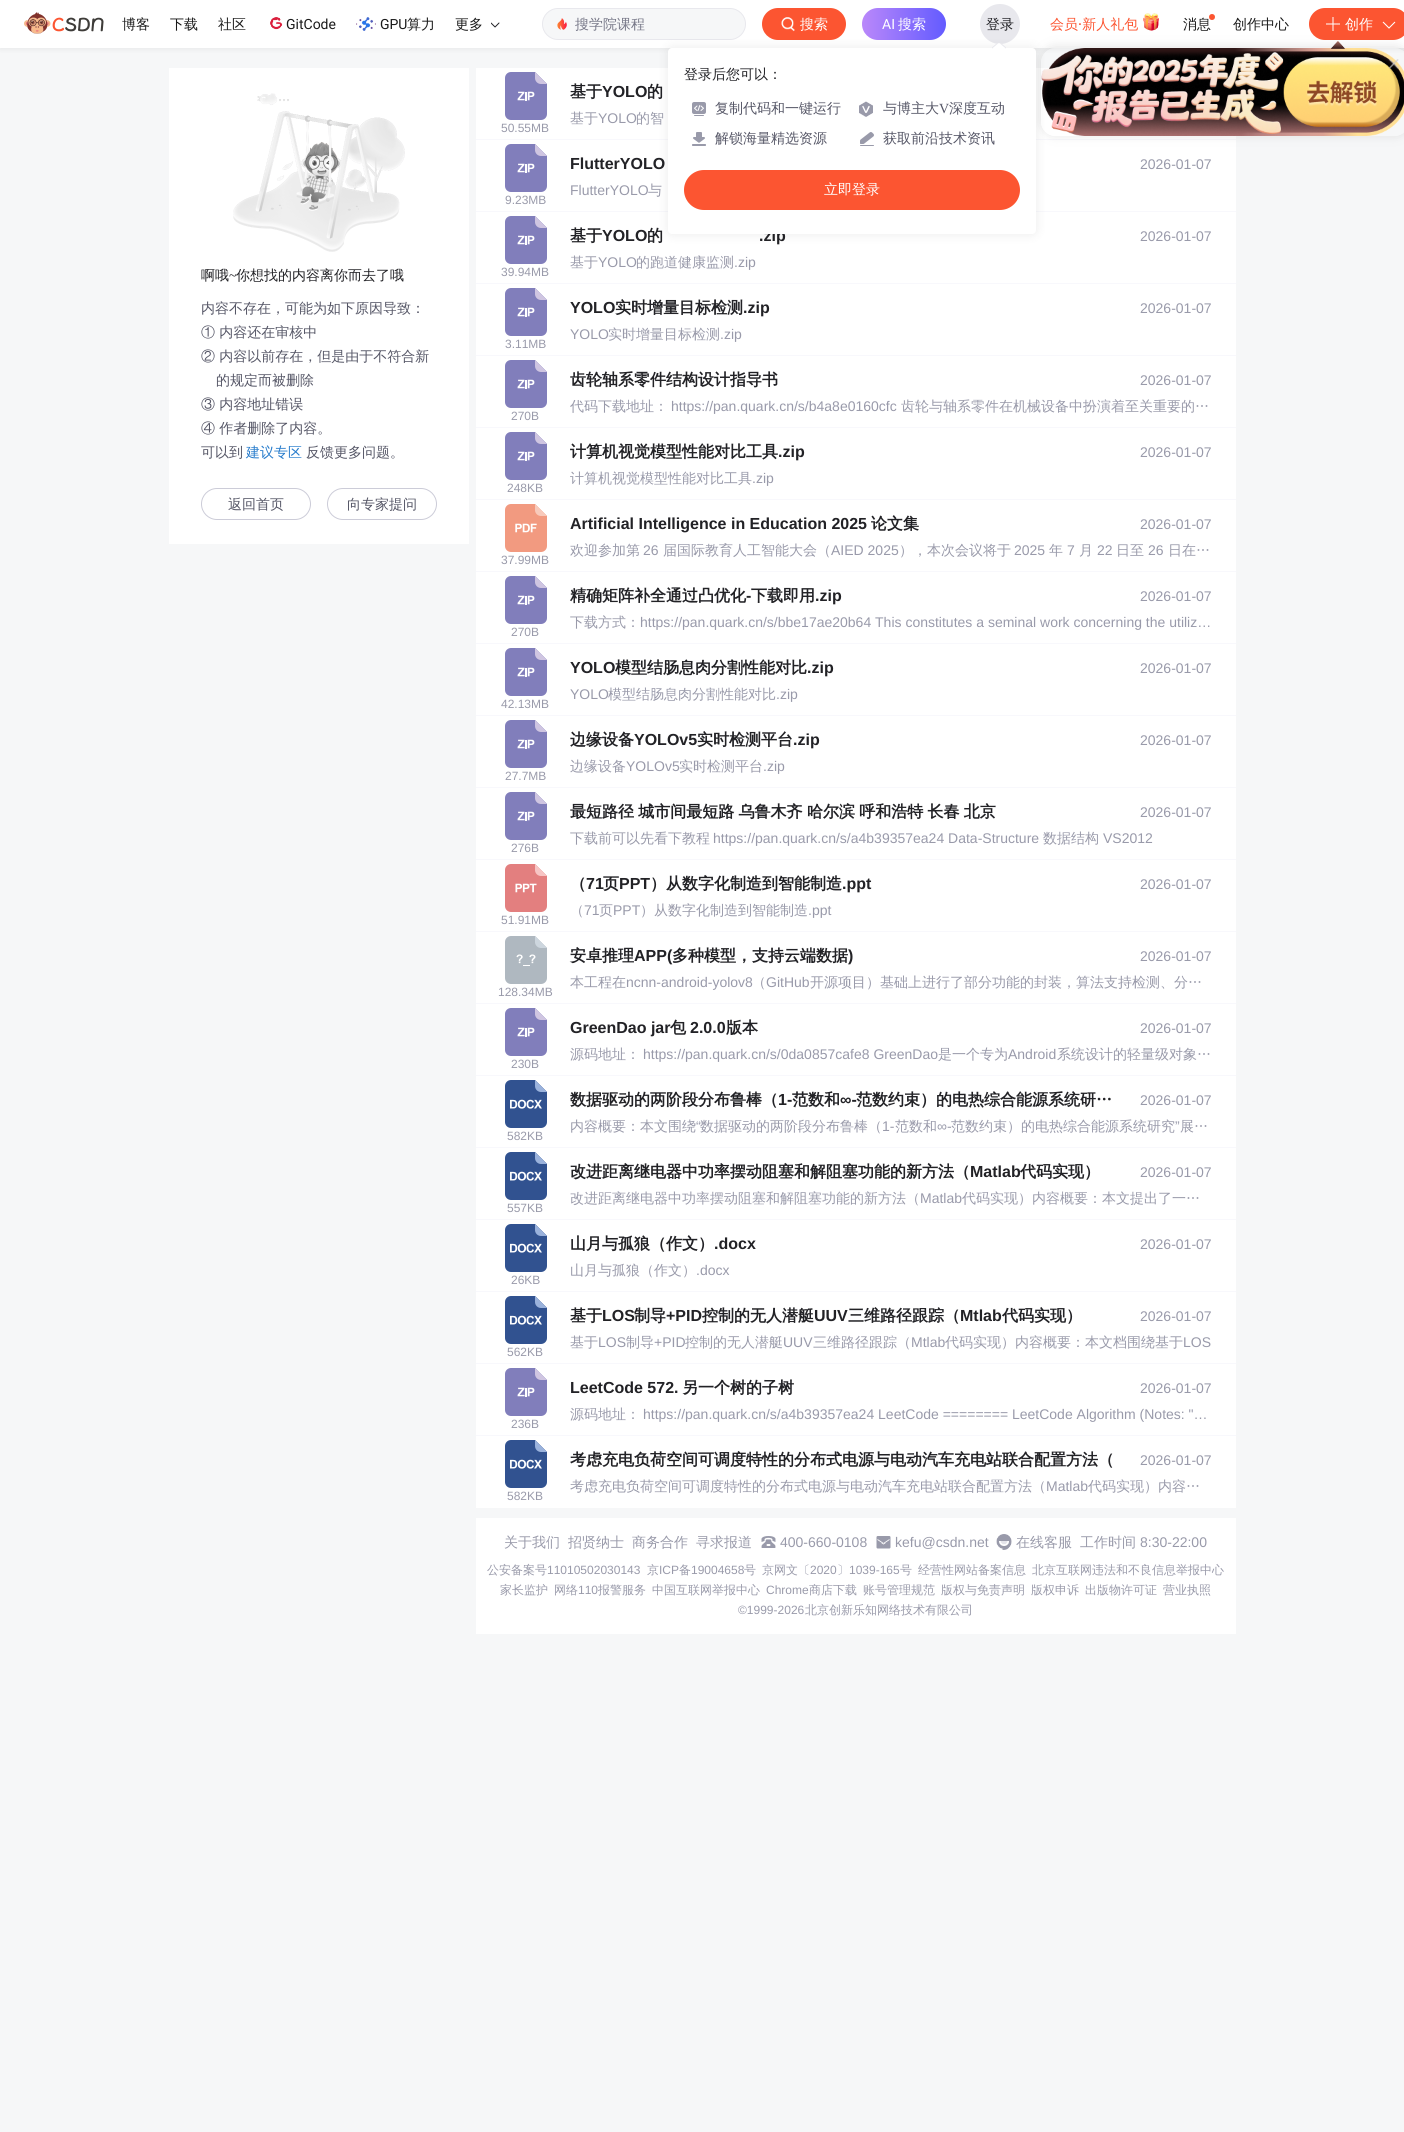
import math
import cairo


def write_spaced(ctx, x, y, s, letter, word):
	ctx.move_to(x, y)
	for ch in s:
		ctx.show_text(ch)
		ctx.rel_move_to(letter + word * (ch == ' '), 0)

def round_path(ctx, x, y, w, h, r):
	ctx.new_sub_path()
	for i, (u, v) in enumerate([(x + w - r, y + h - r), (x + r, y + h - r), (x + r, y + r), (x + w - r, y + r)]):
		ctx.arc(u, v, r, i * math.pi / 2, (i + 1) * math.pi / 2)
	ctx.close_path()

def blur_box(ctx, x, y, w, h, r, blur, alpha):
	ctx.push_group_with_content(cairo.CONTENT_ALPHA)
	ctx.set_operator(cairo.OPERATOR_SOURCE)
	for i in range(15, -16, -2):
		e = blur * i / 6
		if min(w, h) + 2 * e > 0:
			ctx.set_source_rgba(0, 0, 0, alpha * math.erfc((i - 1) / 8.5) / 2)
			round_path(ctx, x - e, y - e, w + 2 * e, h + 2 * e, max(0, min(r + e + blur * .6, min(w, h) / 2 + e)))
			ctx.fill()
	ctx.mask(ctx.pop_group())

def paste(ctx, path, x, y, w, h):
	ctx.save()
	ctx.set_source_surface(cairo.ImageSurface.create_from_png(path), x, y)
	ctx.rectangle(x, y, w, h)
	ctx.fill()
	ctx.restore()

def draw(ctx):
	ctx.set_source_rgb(0.961, 0.965, 0.969)
	ctx.paint()
	ctx.set_source_rgb(0, 0, 0)
	blur_box(ctx, 0, 2, 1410, 48, 0, 2, 0.05)
	ctx.set_source_rgb(1, 1, 1)
	ctx.rectangle(0, 0, 1404, 48)
	ctx.fill()
	paste(ctx, 'media/1.png', 24, 12, 80, 22)
	ctx.select_font_face('WenQuanYi Zen Hei Medium')
	ctx.set_font_size(14)
	ctx.set_source_rgb(0.102, 0.102, 0.102)
	for x, y, s in [
		(122, 29, '博客'),
		(170, 29, '下载'),
		(218, 29, '社区'),
	]:
		ctx.move_to(x, y)
		ctx.show_text(s)
	paste(ctx, 'media/2.png', 270, 17, 13, 13)
	ctx.select_font_face('Roboto')
	ctx.move_to(286, 29)
	ctx.show_text('GitCode')
	paste(ctx, 'media/3.png', 356, 17, 20, 14)
	ctx.move_to(380, 29)
	ctx.show_text('GPU')
	ctx.select_font_face('WenQuanYi Zen Hei Medium')
	ctx.move_to(407, 29)
	ctx.show_text('算力')
	ctx.move_to(455, 29)
	ctx.show_text('更多')
	paste(ctx, 'media/4.png', 491, 22, 9, 6)
	ctx.set_source_rgb(0.961, 0.965, 0.969)
	round_path(ctx, 542.5, 8.5, 203, 31, 15.5)
	ctx.fill_preserve()
	ctx.set_source_rgb(0.91, 0.91, 0.929)
	ctx.set_line_width(1)
	ctx.stroke()
	paste(ctx, 'media/5.png', 557, 18, 10, 12)
	ctx.set_source_rgb(0.467, 0.471, 0.533)
	ctx.move_to(575, 29)
	ctx.show_text('搜学院课程')
	ctx.set_source_rgb(0.988, 0.333, 0.192)
	round_path(ctx, 762, 8, 84, 32, 16)
	ctx.fill()
	paste(ctx, 'media/6.png', 781, 17, 14, 15)
	ctx.set_source_rgb(1, 1, 1)
	ctx.move_to(800, 29)
	ctx.show_text('搜索')
	gradient = cairo.LinearGradient(862, 24, 946, 24)
	gradient.add_color_stop_rgba(0, 0.729, 0.533, 0.98, 1)
	gradient.add_color_stop_rgba(1, 0.388, 0.357, 1, 1)
	ctx.set_source(gradient)
	round_path(ctx, 862, 8, 84, 32, 16)
	ctx.fill()
	ctx.select_font_face('Roboto')
	ctx.set_source_rgb(1, 1, 1)
	ctx.move_to(882, 29)
	ctx.show_text('AI')
	ctx.select_font_face('WenQuanYi Zen Hei Medium')
	ctx.move_to(898, 29)
	ctx.show_text('搜索')
	ctx.set_source_rgb(0.91, 0.91, 0.929)
	ctx.new_path()
	ctx.arc(1000, 24, 20, 0, 2 * math.pi)
	ctx.fill()
	ctx.set_source_rgb(0.133, 0.133, 0.149)
	ctx.move_to(986, 29)
	ctx.show_text('登录')
	paste(ctx, 'media/12.png', 1143, 13, 16, 18)
	ctx.set_source_rgb(0.988, 0.333, 0.192)
	round_path(ctx, 1309, 8, 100, 32, 16)
	ctx.fill()
	paste(ctx, 'media/13.png', 1326, 17, 14, 14)
	ctx.set_source_rgb(1, 1, 1)
	ctx.rectangle(476, 68, 760, 71)
	ctx.fill()
	ctx.set_source_rgb(0.969, 0.969, 0.988)
	ctx.rectangle(476, 139, 760, 1)
	ctx.fill()
	ctx.set_source_rgb(1, 1, 1)
	ctx.rectangle(476, 140, 760, 71)
	ctx.fill()
	ctx.save()
	ctx.set_fill_rule(cairo.FILL_RULE_EVEN_ODD)
	ctx.new_path()
	ctx.move_to(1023, 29)
	ctx.line_to(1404, 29)
	ctx.line_to(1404, 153)
	ctx.line_to(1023, 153)
	ctx.close_path()
	ctx.move_to(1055, 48)
	ctx.line_to(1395, 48)
	ctx.curve_to(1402.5, 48, 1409, 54.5, 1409, 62)
	ctx.line_to(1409, 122)
	ctx.curve_to(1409, 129.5, 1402.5, 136, 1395, 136)
	ctx.line_to(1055, 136)
	ctx.curve_to(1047.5, 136, 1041, 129.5, 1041, 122)
	ctx.line_to(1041, 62)
	ctx.curve_to(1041, 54.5, 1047.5, 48, 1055, 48)
	ctx.close_path()
	ctx.clip()
	ctx.set_source_rgb(0.404, 0.404, 0.404)
	blur_box(ctx, 1041, 47, 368, 88, 14, 5.5, 0.19)
	ctx.restore()
	paste(ctx, 'media/16.png', 1041, 48, 363, 88)
	ctx.set_source_rgb(0.969, 0.969, 0.988)
	ctx.rectangle(476, 211, 760, 1)
	ctx.fill()
	ctx.set_source_rgb(1, 1, 1)
	ctx.rectangle(476, 212, 760, 71)
	ctx.fill()
	ctx.set_source_rgb(0, 0, 0)
	blur_box(ctx, 666, 46, 372, 190, 6, 5, 0.06)
	ctx.select_font_face('Liberation Sans', cairo.FONT_SLANT_NORMAL, cairo.FONT_WEIGHT_BOLD)
	ctx.set_font_size(16)
	ctx.set_source_rgb(0.133, 0.133, 0.149)
	ctx.move_to(759, 241)
	ctx.show_text('.zip')
	ctx.set_source_rgb(1, 1, 1)
	round_path(ctx, 668, 48, 368, 186, 4)
	ctx.fill()
	paste(ctx, 'media/7.png', 992, 43, 14, 6)
	ctx.select_font_face('WenQuanYi Zen Hei Medium')
	ctx.set_font_size(14)
	ctx.set_source_rgb(0.133, 0.133, 0.149)
	ctx.move_to(684, 79)
	ctx.show_text('登录后您可以：')
	paste(ctx, 'media/8.png', 692, 102, 14, 14)
	ctx.set_source_rgb(0.333, 0.337, 0.4)
	ctx.move_to(715, 113)
	ctx.show_text('复制代码和一键运行')
	paste(ctx, 'media/9.png', 859, 101, 14, 16)
	ctx.move_to(883, 113)
	ctx.show_text('与博主大')
	ctx.select_font_face('Liberation Serif')
	ctx.move_to(939, 113)
	ctx.show_text('V')
	ctx.select_font_face('WenQuanYi Zen Hei Medium')
	ctx.move_to(949, 113)
	ctx.show_text('深度互动')
	paste(ctx, 'media/10.png', 692, 132, 14, 14)
	ctx.move_to(715, 143)
	ctx.show_text('解锁海量精选资源')
	paste(ctx, 'media/11.png', 860, 132, 14, 14)
	ctx.move_to(883, 143)
	ctx.show_text('获取前沿技术资讯')
	ctx.set_source_rgb(0.988, 0.333, 0.192)
	round_path(ctx, 684, 170, 336, 40, 20)
	ctx.fill()
	ctx.set_source_rgb(1, 1, 1)
	ctx.move_to(824, 194)
	ctx.show_text('立即登录')
	ctx.set_source_rgb(0.988, 0.333, 0.192)
	ctx.move_to(1050, 29)
	ctx.show_text('会员 新人礼包')
	ctx.select_font_face('Roboto Medium')
	ctx.move_to(1078, 29)
	ctx.show_text('·')
	ctx.select_font_face('WenQuanYi Zen Hei Medium')
	ctx.set_source_rgb(0.102, 0.102, 0.102)
	ctx.move_to(1183, 29)
	ctx.show_text('消息')
	ctx.set_source_rgb(0.988, 0.333, 0.192)
	ctx.new_path()
	ctx.arc(1212, 17, 3, 0, 2 * math.pi)
	ctx.fill()
	ctx.set_source_rgb(0.102, 0.102, 0.102)
	ctx.move_to(1233, 29)
	ctx.show_text('创作中心')
	ctx.set_source_rgb(1, 1, 1)
	ctx.move_to(1345, 29)
	ctx.show_text('创作')
	paste(ctx, 'media/14.png', 1382, 21, 14, 8)
	paste(ctx, 'media/15.png', 1331, 41, 14, 8)
	paste(ctx, 'media/17.png', 1388, 59, 11, 10)
	ctx.rectangle(169, 68, 300, 476)
	ctx.fill()
	paste(ctx, 'media/18.png', 233, 93, 172, 159)
	ctx.set_source_rgb(0.133, 0.133, 0.149)
	ctx.move_to(201, 280)
	ctx.show_text('啊哦')
	ctx.select_font_face('Liberation Serif')
	ctx.move_to(229, 280)
	ctx.show_text('~')
	ctx.select_font_face('WenQuanYi Zen Hei Medium')
	ctx.move_to(236, 280)
	ctx.show_text('你想找的内容离你而去了哦')
	ctx.set_source_rgb(0.333, 0.337, 0.4)
	for x, y, s in [
		(201, 313, '内容不存在，可能为如下原因导致：'),
		(201, 337, '① 内容还在审核中'),
		(201, 361, '② 内容以前存在，但是由于不符合新'),
		(216, 385, '的规定而被删除'),
		(201, 409, '③ 内容地址错误'),
		(201, 433, '④ 作者删除了内容。'),
		(201, 457, '可以到'),
	]:
		ctx.move_to(x, y)
		ctx.show_text(s)
	ctx.set_source_rgb(0.153, 0.486, 0.8)
	ctx.move_to(246, 457)
	ctx.show_text('建议专区')
	ctx.set_source_rgb(0.333, 0.337, 0.4)
	ctx.move_to(306, 457)
	ctx.show_text('反馈更多问题。')
	round_path(ctx, 201.5, 488.5, 109, 31, 15.5)
	ctx.set_source_rgb(0.8, 0.8, 0.847)
	ctx.stroke()
	ctx.set_source_rgb(0.333, 0.337, 0.4)
	ctx.move_to(228, 509)
	ctx.show_text('返回首页')
	round_path(ctx, 327.5, 488.5, 109, 31, 15.5)
	ctx.set_source_rgb(0.8, 0.8, 0.847)
	ctx.stroke()
	ctx.set_source_rgb(0.333, 0.337, 0.4)
	ctx.move_to(347, 509)
	ctx.show_text('向专家提问')
	ctx.select_font_face('WenQuanYi Zen Hei', cairo.FONT_SLANT_NORMAL, cairo.FONT_WEIGHT_BOLD)
	ctx.set_font_size(16)
	ctx.set_source_rgb(0.133, 0.133, 0.149)
	ctx.move_to(570, 97)
	ctx.show_text('基于')
	ctx.select_font_face('Liberation Sans', cairo.FONT_SLANT_NORMAL, cairo.FONT_WEIGHT_BOLD)
	ctx.move_to(602, 97)
	ctx.show_text('YOLO')
	ctx.select_font_face('WenQuanYi Zen Hei', cairo.FONT_SLANT_NORMAL, cairo.FONT_WEIGHT_BOLD)
	ctx.move_to(647, 97)
	ctx.show_text('的')
	ctx.select_font_face('WenQuanYi Zen Hei Medium')
	ctx.set_font_size(14)
	ctx.set_source_rgb(0.6, 0.604, 0.667)
	ctx.move_to(570, 123)
	ctx.show_text('基于')
	ctx.select_font_face('Liberation Sans')
	ctx.move_to(598, 123)
	ctx.show_text('YOLO')
	ctx.select_font_face('WenQuanYi Zen Hei Medium')
	ctx.move_to(636, 123)
	ctx.show_text('的智')
	paste(ctx, 'media/19.png', 505, 72, 42, 48)
	ctx.select_font_face('Liberation Sans')
	ctx.set_font_size(12)
	ctx.move_to(501, 132)
	ctx.show_text('50.55MB')
	ctx.select_font_face('Liberation Sans', cairo.FONT_SLANT_NORMAL, cairo.FONT_WEIGHT_BOLD)
	ctx.set_font_size(16)
	ctx.set_source_rgb(0.133, 0.133, 0.149)
	ctx.move_to(570, 169)
	ctx.show_text('FlutterYOLO')
	ctx.select_font_face('Liberation Sans')
	ctx.set_font_size(14)
	ctx.set_source_rgb(0.6, 0.604, 0.667)
	ctx.move_to(1140, 169)
	ctx.show_text('2026-01-07')
	ctx.move_to(570, 195)
	ctx.show_text('FlutterYOLO')
	ctx.select_font_face('WenQuanYi Zen Hei Medium')
	ctx.move_to(648, 195)
	ctx.show_text('与')
	paste(ctx, 'media/19.png', 505, 144, 42, 48)
	ctx.select_font_face('Liberation Sans')
	ctx.set_font_size(12)
	ctx.move_to(505, 204)
	ctx.show_text('9.23MB')
	ctx.set_source_rgb(0.969, 0.969, 0.988)
	ctx.rectangle(476, 283, 760, 1)
	ctx.fill()
	ctx.select_font_face('WenQuanYi Zen Hei', cairo.FONT_SLANT_NORMAL, cairo.FONT_WEIGHT_BOLD)
	ctx.set_font_size(16)
	ctx.set_source_rgb(0.133, 0.133, 0.149)
	ctx.move_to(570, 241)
	ctx.show_text('基于')
	ctx.select_font_face('Liberation Sans', cairo.FONT_SLANT_NORMAL, cairo.FONT_WEIGHT_BOLD)
	ctx.move_to(602, 241)
	ctx.show_text('YOLO')
	ctx.select_font_face('WenQuanYi Zen Hei', cairo.FONT_SLANT_NORMAL, cairo.FONT_WEIGHT_BOLD)
	ctx.move_to(647, 241)
	ctx.show_text('的')
	ctx.select_font_face('Liberation Sans')
	ctx.set_font_size(14)
	ctx.set_source_rgb(0.6, 0.604, 0.667)
	ctx.move_to(1140, 241)
	ctx.show_text('2026-01-07')
	ctx.select_font_face('WenQuanYi Zen Hei Medium')
	ctx.move_to(570, 267)
	ctx.show_text('基于')
	ctx.select_font_face('Liberation Sans')
	ctx.move_to(598, 267)
	ctx.show_text('YOLO')
	ctx.select_font_face('WenQuanYi Zen Hei Medium')
	ctx.move_to(636, 267)
	ctx.show_text('的跑道健康监测')
	ctx.select_font_face('Liberation Sans')
	ctx.move_to(734, 267)
	ctx.show_text('.zip')
	paste(ctx, 'media/19.png', 505, 216, 42, 48)
	ctx.set_font_size(12)
	ctx.move_to(501, 276)
	ctx.show_text('39.94MB')
	ctx.set_source_rgb(1, 1, 1)
	ctx.rectangle(476, 284, 760, 71)
	ctx.fill()
	ctx.set_source_rgb(0.969, 0.969, 0.988)
	ctx.rectangle(476, 355, 760, 1)
	ctx.fill()
	ctx.select_font_face('Liberation Sans', cairo.FONT_SLANT_NORMAL, cairo.FONT_WEIGHT_BOLD)
	ctx.set_font_size(16)
	ctx.set_source_rgb(0.133, 0.133, 0.149)
	ctx.move_to(570, 313)
	ctx.show_text('YOLO')
	ctx.select_font_face('WenQuanYi Zen Hei', cairo.FONT_SLANT_NORMAL, cairo.FONT_WEIGHT_BOLD)
	ctx.move_to(615, 313)
	ctx.show_text('实时增量目标检测')
	ctx.select_font_face('Liberation Sans', cairo.FONT_SLANT_NORMAL, cairo.FONT_WEIGHT_BOLD)
	ctx.move_to(743, 313)
	ctx.show_text('.zip')
	ctx.select_font_face('Liberation Sans')
	ctx.set_font_size(14)
	ctx.set_source_rgb(0.6, 0.604, 0.667)
	ctx.move_to(1140, 313)
	ctx.show_text('2026-01-07')
	ctx.move_to(570, 339)
	ctx.show_text('YOLO')
	ctx.select_font_face('WenQuanYi Zen Hei Medium')
	ctx.move_to(608, 339)
	ctx.show_text('实时增量目标检测')
	ctx.select_font_face('Liberation Sans')
	ctx.move_to(720, 339)
	ctx.show_text('.zip')
	paste(ctx, 'media/19.png', 505, 288, 42, 48)
	ctx.set_font_size(12)
	ctx.move_to(505, 348)
	ctx.show_text('3.11MB')
	ctx.set_source_rgb(1, 1, 1)
	ctx.rectangle(476, 356, 760, 71)
	ctx.fill()
	ctx.set_source_rgb(0.969, 0.969, 0.988)
	ctx.rectangle(476, 427, 760, 1)
	ctx.fill()
	ctx.select_font_face('WenQuanYi Zen Hei', cairo.FONT_SLANT_NORMAL, cairo.FONT_WEIGHT_BOLD)
	ctx.set_font_size(16)
	ctx.set_source_rgb(0.133, 0.133, 0.149)
	ctx.move_to(570, 385)
	ctx.show_text('齿轮轴系零件结构设计指导书')
	ctx.select_font_face('Liberation Sans')
	ctx.set_font_size(14)
	ctx.set_source_rgb(0.6, 0.604, 0.667)
	ctx.move_to(1140, 385)
	ctx.show_text('2026-01-07')
	ctx.select_font_face('WenQuanYi Zen Hei Medium')
	ctx.move_to(570, 411)
	ctx.show_text('代码下载地址：')
	ctx.select_font_face('Liberation Sans')
	ctx.move_to(671, 411)
	ctx.show_text('https://pan.quark.cn/s/b4a8e0160cfc')
	ctx.select_font_face('WenQuanYi Zen Hei Medium')
	ctx.move_to(901, 411)
	ctx.show_text('齿轮与轴系零件在机械设备中扮演着至关重要的…')
	paste(ctx, 'media/19.png', 505, 360, 42, 48)
	ctx.select_font_face('Liberation Sans')
	ctx.set_font_size(12)
	ctx.move_to(511, 420)
	ctx.show_text('270B')
	ctx.set_source_rgb(1, 1, 1)
	ctx.rectangle(476, 428, 760, 71)
	ctx.fill()
	ctx.set_source_rgb(0.969, 0.969, 0.988)
	ctx.rectangle(476, 499, 760, 1)
	ctx.fill()
	ctx.select_font_face('WenQuanYi Zen Hei', cairo.FONT_SLANT_NORMAL, cairo.FONT_WEIGHT_BOLD)
	ctx.set_font_size(16)
	ctx.set_source_rgb(0.133, 0.133, 0.149)
	ctx.move_to(570, 457)
	ctx.show_text('计算机视觉模型性能对比工具')
	ctx.select_font_face('Liberation Sans', cairo.FONT_SLANT_NORMAL, cairo.FONT_WEIGHT_BOLD)
	ctx.move_to(778, 457)
	ctx.show_text('.zip')
	ctx.select_font_face('Liberation Sans')
	ctx.set_font_size(14)
	ctx.set_source_rgb(0.6, 0.604, 0.667)
	ctx.move_to(1140, 457)
	ctx.show_text('2026-01-07')
	ctx.select_font_face('WenQuanYi Zen Hei Medium')
	ctx.move_to(570, 483)
	ctx.show_text('计算机视觉模型性能对比工具')
	ctx.select_font_face('Liberation Sans')
	ctx.move_to(752, 483)
	ctx.show_text('.zip')
	paste(ctx, 'media/19.png', 505, 432, 42, 48)
	ctx.set_font_size(12)
	ctx.move_to(507, 492)
	ctx.show_text('248KB')
	ctx.set_source_rgb(1, 1, 1)
	ctx.rectangle(476, 500, 760, 71)
	ctx.fill()
	ctx.set_source_rgb(0.969, 0.969, 0.988)
	ctx.rectangle(476, 571, 760, 1)
	ctx.fill()
	ctx.select_font_face('Liberation Sans', cairo.FONT_SLANT_NORMAL, cairo.FONT_WEIGHT_BOLD)
	ctx.set_font_size(16)
	ctx.set_source_rgb(0.133, 0.133, 0.149)
	ctx.move_to(570, 529)
	ctx.show_text('Artificial Intelligence in Education 2025')
	ctx.select_font_face('WenQuanYi Zen Hei', cairo.FONT_SLANT_NORMAL, cairo.FONT_WEIGHT_BOLD)
	ctx.move_to(871, 529)
	ctx.show_text('论文集')
	ctx.select_font_face('Liberation Sans')
	ctx.set_font_size(14)
	ctx.set_source_rgb(0.6, 0.604, 0.667)
	ctx.move_to(1140, 529)
	ctx.show_text('2026-01-07')
	ctx.select_font_face('WenQuanYi Zen Hei Medium')
	ctx.move_to(570, 555)
	ctx.show_text('欢迎参加第')
	ctx.select_font_face('Liberation Sans')
	ctx.move_to(643, 555)
	ctx.show_text('26')
	ctx.select_font_face('WenQuanYi Zen Hei Medium')
	ctx.move_to(663, 555)
	ctx.show_text('届国际教育人工智能大会（')
	ctx.select_font_face('Liberation Sans')
	ctx.move_to(831, 555)
	ctx.show_text('AIED 2025')
	ctx.select_font_face('WenQuanYi Zen Hei Medium')
	ctx.move_to(899, 555)
	ctx.show_text('），本次会议将于')
	ctx.select_font_face('Liberation Sans')
	ctx.move_to(1014, 555)
	ctx.show_text('2025')
	ctx.select_font_face('WenQuanYi Zen Hei Medium')
	ctx.move_to(1049, 555)
	ctx.show_text('年')
	ctx.select_font_face('Liberation Sans')
	ctx.move_to(1067, 555)
	ctx.show_text('7')
	ctx.select_font_face('WenQuanYi Zen Hei Medium')
	ctx.move_to(1079, 555)
	ctx.show_text('月')
	ctx.select_font_face('Liberation Sans')
	ctx.move_to(1097, 555)
	ctx.show_text('22')
	ctx.select_font_face('WenQuanYi Zen Hei Medium')
	ctx.move_to(1116, 555)
	ctx.show_text('日至')
	ctx.select_font_face('Liberation Sans')
	ctx.move_to(1148, 555)
	ctx.show_text('26')
	ctx.select_font_face('WenQuanYi Zen Hei Medium')
	ctx.move_to(1168, 555)
	ctx.show_text('日在…')
	paste(ctx, 'media/20.png', 505, 504, 42, 48)
	ctx.select_font_face('Liberation Sans')
	ctx.set_font_size(12)
	ctx.move_to(501, 564)
	ctx.show_text('37.99MB')
	ctx.set_source_rgb(1, 1, 1)
	ctx.rectangle(476, 572, 760, 71)
	ctx.fill()
	ctx.set_source_rgb(0.969, 0.969, 0.988)
	ctx.rectangle(476, 643, 760, 1)
	ctx.fill()
	ctx.select_font_face('WenQuanYi Zen Hei', cairo.FONT_SLANT_NORMAL, cairo.FONT_WEIGHT_BOLD)
	ctx.set_font_size(16)
	ctx.set_source_rgb(0.133, 0.133, 0.149)
	ctx.move_to(570, 601)
	ctx.show_text('精确矩阵补全通过凸优化')
	ctx.select_font_face('Liberation Sans', cairo.FONT_SLANT_NORMAL, cairo.FONT_WEIGHT_BOLD)
	ctx.move_to(746, 601)
	ctx.show_text('-')
	ctx.select_font_face('WenQuanYi Zen Hei', cairo.FONT_SLANT_NORMAL, cairo.FONT_WEIGHT_BOLD)
	ctx.move_to(751, 601)
	ctx.show_text('下载即用')
	ctx.select_font_face('Liberation Sans', cairo.FONT_SLANT_NORMAL, cairo.FONT_WEIGHT_BOLD)
	ctx.move_to(815, 601)
	ctx.show_text('.zip')
	ctx.select_font_face('Liberation Sans')
	ctx.set_font_size(14)
	ctx.set_source_rgb(0.6, 0.604, 0.667)
	ctx.move_to(1140, 601)
	ctx.show_text('2026-01-07')
	ctx.select_font_face('WenQuanYi Zen Hei Medium')
	ctx.move_to(570, 627)
	ctx.show_text('下载方式：')
	ctx.select_font_face('Liberation Sans')
	ctx.move_to(640, 627)
	ctx.show_text('https://pan.quark.cn/s/bbe17ae20b64 This constitutes a seminal work concerning the utiliz…')
	paste(ctx, 'media/19.png', 505, 576, 42, 48)
	ctx.set_font_size(12)
	ctx.move_to(511, 636)
	ctx.show_text('270B')
	ctx.set_source_rgb(1, 1, 1)
	ctx.rectangle(476, 644, 760, 71)
	ctx.fill()
	ctx.set_source_rgb(0.969, 0.969, 0.988)
	ctx.rectangle(476, 715, 760, 1)
	ctx.fill()
	ctx.select_font_face('Liberation Sans', cairo.FONT_SLANT_NORMAL, cairo.FONT_WEIGHT_BOLD)
	ctx.set_font_size(16)
	ctx.set_source_rgb(0.133, 0.133, 0.149)
	ctx.move_to(570, 673)
	ctx.show_text('YOLO')
	ctx.select_font_face('WenQuanYi Zen Hei', cairo.FONT_SLANT_NORMAL, cairo.FONT_WEIGHT_BOLD)
	ctx.move_to(615, 673)
	ctx.show_text('模型结肠息肉分割性能对比')
	ctx.select_font_face('Liberation Sans', cairo.FONT_SLANT_NORMAL, cairo.FONT_WEIGHT_BOLD)
	ctx.move_to(807, 673)
	ctx.show_text('.zip')
	ctx.select_font_face('Liberation Sans')
	ctx.set_font_size(14)
	ctx.set_source_rgb(0.6, 0.604, 0.667)
	ctx.move_to(1140, 673)
	ctx.show_text('2026-01-07')
	ctx.move_to(570, 699)
	ctx.show_text('YOLO')
	ctx.select_font_face('WenQuanYi Zen Hei Medium')
	ctx.move_to(608, 699)
	ctx.show_text('模型结肠息肉分割性能对比')
	ctx.select_font_face('Liberation Sans')
	ctx.move_to(776, 699)
	ctx.show_text('.zip')
	paste(ctx, 'media/19.png', 505, 648, 42, 48)
	ctx.set_font_size(12)
	ctx.move_to(501, 708)
	ctx.show_text('42.13MB')
	ctx.set_source_rgb(1, 1, 1)
	ctx.rectangle(476, 716, 760, 71)
	ctx.fill()
	ctx.set_source_rgb(0.969, 0.969, 0.988)
	ctx.rectangle(476, 787, 760, 1)
	ctx.fill()
	ctx.select_font_face('WenQuanYi Zen Hei', cairo.FONT_SLANT_NORMAL, cairo.FONT_WEIGHT_BOLD)
	ctx.set_font_size(16)
	ctx.set_source_rgb(0.133, 0.133, 0.149)
	ctx.move_to(570, 745)
	ctx.show_text('边缘设备')
	ctx.select_font_face('Liberation Sans', cairo.FONT_SLANT_NORMAL, cairo.FONT_WEIGHT_BOLD)
	ctx.move_to(634, 745)
	ctx.show_text('YOLOv5')
	ctx.select_font_face('WenQuanYi Zen Hei', cairo.FONT_SLANT_NORMAL, cairo.FONT_WEIGHT_BOLD)
	ctx.move_to(697, 745)
	ctx.show_text('实时检测平台')
	ctx.select_font_face('Liberation Sans', cairo.FONT_SLANT_NORMAL, cairo.FONT_WEIGHT_BOLD)
	ctx.move_to(793, 745)
	ctx.show_text('.zip')
	ctx.select_font_face('Liberation Sans')
	ctx.set_font_size(14)
	ctx.set_source_rgb(0.6, 0.604, 0.667)
	ctx.move_to(1140, 745)
	ctx.show_text('2026-01-07')
	ctx.select_font_face('WenQuanYi Zen Hei Medium')
	ctx.move_to(570, 771)
	ctx.show_text('边缘设备')
	ctx.select_font_face('Liberation Sans')
	ctx.move_to(626, 771)
	ctx.show_text('YOLOv5')
	ctx.select_font_face('WenQuanYi Zen Hei Medium')
	ctx.move_to(679, 771)
	ctx.show_text('实时检测平台')
	ctx.select_font_face('Liberation Sans')
	ctx.move_to(763, 771)
	ctx.show_text('.zip')
	paste(ctx, 'media/19.png', 505, 720, 42, 48)
	ctx.set_font_size(12)
	ctx.move_to(505, 780)
	ctx.show_text('27.7MB')
	ctx.set_source_rgb(1, 1, 1)
	ctx.rectangle(476, 788, 760, 71)
	ctx.fill()
	ctx.set_source_rgb(0.969, 0.969, 0.988)
	ctx.rectangle(476, 859, 760, 1)
	ctx.fill()
	ctx.select_font_face('WenQuanYi Zen Hei', cairo.FONT_SLANT_NORMAL, cairo.FONT_WEIGHT_BOLD)
	ctx.set_font_size(16)
	ctx.set_source_rgb(0.133, 0.133, 0.149)
	write_spaced(ctx, 570, 817, '最短路径 城市间最短路 乌鲁木齐 哈尔滨 呼和浩特 长春 北京', 0, -0.5)
	ctx.select_font_face('Liberation Sans')
	ctx.set_font_size(14)
	ctx.set_source_rgb(0.6, 0.604, 0.667)
	ctx.move_to(1140, 817)
	ctx.show_text('2026-01-07')
	ctx.select_font_face('WenQuanYi Zen Hei Medium')
	ctx.move_to(570, 843)
	ctx.show_text('下载前可以先看下教程')
	ctx.select_font_face('Liberation Sans')
	ctx.move_to(713, 843)
	ctx.show_text('https://pan.quark.cn/s/a4b39357ea24 Data-Structure')
	ctx.select_font_face('WenQuanYi Zen Hei Medium')
	ctx.move_to(1043, 843)
	ctx.show_text('数据结构')
	ctx.select_font_face('Liberation Sans')
	ctx.move_to(1103, 843)
	ctx.show_text('VS2012')
	paste(ctx, 'media/19.png', 505, 792, 42, 48)
	ctx.set_font_size(12)
	ctx.move_to(511, 852)
	ctx.show_text('276B')
	ctx.set_source_rgb(1, 1, 1)
	ctx.rectangle(476, 860, 760, 71)
	ctx.fill()
	ctx.set_source_rgb(0.969, 0.969, 0.988)
	ctx.rectangle(476, 931, 760, 1)
	ctx.fill()
	ctx.select_font_face('WenQuanYi Zen Hei', cairo.FONT_SLANT_NORMAL, cairo.FONT_WEIGHT_BOLD)
	ctx.set_font_size(16)
	ctx.set_source_rgb(0.133, 0.133, 0.149)
	ctx.move_to(570, 889)
	ctx.show_text('（')
	ctx.select_font_face('Liberation Sans', cairo.FONT_SLANT_NORMAL, cairo.FONT_WEIGHT_BOLD)
	ctx.move_to(586, 889)
	ctx.show_text('71')
	ctx.select_font_face('WenQuanYi Zen Hei', cairo.FONT_SLANT_NORMAL, cairo.FONT_WEIGHT_BOLD)
	ctx.move_to(603, 889)
	ctx.show_text('页')
	ctx.select_font_face('Liberation Sans', cairo.FONT_SLANT_NORMAL, cairo.FONT_WEIGHT_BOLD)
	ctx.move_to(619, 889)
	ctx.show_text('PPT')
	ctx.select_font_face('WenQuanYi Zen Hei', cairo.FONT_SLANT_NORMAL, cairo.FONT_WEIGHT_BOLD)
	ctx.move_to(650, 889)
	ctx.show_text('）从数字化制造到智能制造')
	ctx.select_font_face('Liberation Sans', cairo.FONT_SLANT_NORMAL, cairo.FONT_WEIGHT_BOLD)
	ctx.move_to(842, 889)
	ctx.show_text('.ppt')
	ctx.select_font_face('Liberation Sans')
	ctx.set_font_size(14)
	ctx.set_source_rgb(0.6, 0.604, 0.667)
	ctx.move_to(1140, 889)
	ctx.show_text('2026-01-07')
	ctx.select_font_face('WenQuanYi Zen Hei Medium')
	ctx.move_to(570, 915)
	ctx.show_text('（')
	ctx.select_font_face('Liberation Sans')
	ctx.move_to(584, 915)
	ctx.show_text('71')
	ctx.select_font_face('WenQuanYi Zen Hei Medium')
	ctx.move_to(599, 915)
	ctx.show_text('页')
	ctx.select_font_face('Liberation Sans')
	ctx.move_to(613, 915)
	ctx.show_text('PPT')
	ctx.select_font_face('WenQuanYi Zen Hei Medium')
	ctx.move_to(640, 915)
	ctx.show_text('）从数字化制造到智能制造')
	ctx.select_font_face('Liberation Sans')
	ctx.move_to(808, 915)
	ctx.show_text('.ppt')
	paste(ctx, 'media/21.png', 505, 864, 42, 48)
	ctx.set_font_size(12)
	ctx.move_to(501, 924)
	ctx.show_text('51.91MB')
	ctx.set_source_rgb(1, 1, 1)
	ctx.rectangle(476, 932, 760, 71)
	ctx.fill()
	ctx.set_source_rgb(0.969, 0.969, 0.988)
	ctx.rectangle(476, 1003, 760, 1)
	ctx.fill()
	ctx.select_font_face('WenQuanYi Zen Hei', cairo.FONT_SLANT_NORMAL, cairo.FONT_WEIGHT_BOLD)
	ctx.set_font_size(16)
	ctx.set_source_rgb(0.133, 0.133, 0.149)
	ctx.move_to(570, 961)
	ctx.show_text('安卓推理')
	ctx.select_font_face('Liberation Sans', cairo.FONT_SLANT_NORMAL, cairo.FONT_WEIGHT_BOLD)
	ctx.move_to(634, 961)
	ctx.show_text('APP(')
	ctx.select_font_face('WenQuanYi Zen Hei', cairo.FONT_SLANT_NORMAL, cairo.FONT_WEIGHT_BOLD)
	ctx.move_to(672, 961)
	ctx.show_text('多种模型，支持云端数据')
	ctx.select_font_face('Liberation Sans', cairo.FONT_SLANT_NORMAL, cairo.FONT_WEIGHT_BOLD)
	ctx.move_to(848, 961)
	ctx.show_text(')')
	ctx.select_font_face('Liberation Sans')
	ctx.set_font_size(14)
	ctx.set_source_rgb(0.6, 0.604, 0.667)
	ctx.move_to(1140, 961)
	ctx.show_text('2026-01-07')
	ctx.select_font_face('WenQuanYi Zen Hei Medium')
	ctx.move_to(570, 987)
	ctx.show_text('本工程在')
	ctx.select_font_face('Liberation Sans')
	ctx.move_to(626, 987)
	ctx.show_text('ncnn-android-yolov8')
	ctx.select_font_face('WenQuanYi Zen Hei Medium')
	ctx.move_to(752, 987)
	ctx.show_text('（')
	ctx.select_font_face('Liberation Sans')
	ctx.move_to(766, 987)
	ctx.show_text('GitHub')
	ctx.select_font_face('WenQuanYi Zen Hei Medium')
	ctx.move_to(810, 987)
	ctx.show_text('开源项目）基础上进行了部分功能的封装，算法支持检测、分…')
	paste(ctx, 'media/22.png', 505, 936, 42, 48)
	ctx.select_font_face('Liberation Sans')
	ctx.set_font_size(12)
	ctx.move_to(498, 996)
	ctx.show_text('128.34MB')
	ctx.set_source_rgb(1, 1, 1)
	ctx.rectangle(476, 1004, 760, 71)
	ctx.fill()
	ctx.set_source_rgb(0.969, 0.969, 0.988)
	ctx.rectangle(476, 1075, 760, 1)
	ctx.fill()
	ctx.select_font_face('Liberation Sans', cairo.FONT_SLANT_NORMAL, cairo.FONT_WEIGHT_BOLD)
	ctx.set_font_size(16)
	ctx.set_source_rgb(0.133, 0.133, 0.149)
	ctx.move_to(570, 1033)
	ctx.show_text('GreenDao jar')
	ctx.select_font_face('WenQuanYi Zen Hei', cairo.FONT_SLANT_NORMAL, cairo.FONT_WEIGHT_BOLD)
	ctx.move_to(670, 1033)
	ctx.show_text('包')
	ctx.select_font_face('Liberation Sans', cairo.FONT_SLANT_NORMAL, cairo.FONT_WEIGHT_BOLD)
	ctx.move_to(690, 1033)
	ctx.show_text('2.0.0')
	ctx.select_font_face('WenQuanYi Zen Hei', cairo.FONT_SLANT_NORMAL, cairo.FONT_WEIGHT_BOLD)
	ctx.move_to(726, 1033)
	ctx.show_text('版本')
	ctx.select_font_face('Liberation Sans')
	ctx.set_font_size(14)
	ctx.set_source_rgb(0.6, 0.604, 0.667)
	ctx.move_to(1140, 1033)
	ctx.show_text('2026-01-07')
	ctx.select_font_face('WenQuanYi Zen Hei Medium')
	ctx.move_to(570, 1059)
	ctx.show_text('源码地址：')
	ctx.select_font_face('Liberation Sans')
	ctx.move_to(643, 1059)
	ctx.show_text('https://pan.quark.cn/s/0da0857cafe8 GreenDao')
	ctx.select_font_face('WenQuanYi Zen Hei Medium')
	ctx.move_to(938, 1059)
	ctx.show_text('是一个专为')
	ctx.select_font_face('Liberation Sans')
	ctx.move_to(1008, 1059)
	ctx.show_text('Android')
	ctx.select_font_face('WenQuanYi Zen Hei Medium')
	ctx.move_to(1057, 1059)
	ctx.show_text('系统设计的轻量级对象…')
	paste(ctx, 'media/19.png', 505, 1008, 42, 48)
	ctx.select_font_face('Liberation Sans')
	ctx.set_font_size(12)
	ctx.move_to(511, 1068)
	ctx.show_text('230B')
	ctx.set_source_rgb(1, 1, 1)
	ctx.rectangle(476, 1076, 760, 71)
	ctx.fill()
	ctx.set_source_rgb(0.969, 0.969, 0.988)
	ctx.rectangle(476, 1147, 760, 1)
	ctx.fill()
	ctx.select_font_face('WenQuanYi Zen Hei', cairo.FONT_SLANT_NORMAL, cairo.FONT_WEIGHT_BOLD)
	ctx.set_font_size(16)
	ctx.set_source_rgb(0.133, 0.133, 0.149)
	ctx.move_to(570, 1105)
	ctx.show_text('数据驱动的两阶段分布鲁棒（')
	ctx.select_font_face('Liberation Sans', cairo.FONT_SLANT_NORMAL, cairo.FONT_WEIGHT_BOLD)
	ctx.move_to(778, 1105)
	ctx.show_text('1-')
	ctx.select_font_face('WenQuanYi Zen Hei', cairo.FONT_SLANT_NORMAL, cairo.FONT_WEIGHT_BOLD)
	ctx.move_to(792, 1105)
	ctx.show_text('范数和')
	ctx.select_font_face('Liberation Sans', cairo.FONT_SLANT_NORMAL, cairo.FONT_WEIGHT_BOLD)
	ctx.move_to(840, 1105)
	ctx.show_text('∞-')
	ctx.select_font_face('WenQuanYi Zen Hei', cairo.FONT_SLANT_NORMAL, cairo.FONT_WEIGHT_BOLD)
	ctx.move_to(856, 1105)
	ctx.show_text('范数约束）的电热综合能源系统研…')
	ctx.select_font_face('Liberation Sans')
	ctx.set_font_size(14)
	ctx.set_source_rgb(0.6, 0.604, 0.667)
	ctx.move_to(1140, 1105)
	ctx.show_text('2026-01-07')
	ctx.select_font_face('WenQuanYi Zen Hei Medium')
	ctx.move_to(570, 1131)
	ctx.show_text('内容概要：本文围绕')
	ctx.select_font_face('Liberation Sans')
	ctx.move_to(696, 1131)
	ctx.show_text('“')
	ctx.select_font_face('WenQuanYi Zen Hei Medium')
	ctx.move_to(700, 1131)
	ctx.show_text('数据驱动的两阶段分布鲁棒（')
	ctx.select_font_face('Liberation Sans')
	ctx.move_to(882, 1131)
	ctx.show_text('1-')
	ctx.select_font_face('WenQuanYi Zen Hei Medium')
	ctx.move_to(895, 1131)
	ctx.show_text('范数和')
	ctx.move_to(951, 1131)
	ctx.show_text('范数约束）的电热综合能源系统研究')
	ctx.select_font_face('Liberation Sans')
	ctx.move_to(1175, 1131)
	ctx.show_text('”')
	ctx.select_font_face('WenQuanYi Zen Hei Medium')
	ctx.move_to(1180, 1131)
	ctx.show_text('展…')
	ctx.select_font_face('Liberation Sans')
	ctx.move_to(937, 1131)
	ctx.show_text('∞-')
	paste(ctx, 'media/23.png', 505, 1080, 42, 48)
	ctx.set_font_size(12)
	ctx.move_to(507, 1140)
	ctx.show_text('582KB')
	ctx.set_source_rgb(1, 1, 1)
	ctx.rectangle(476, 1148, 760, 71)
	ctx.fill()
	ctx.set_source_rgb(0.969, 0.969, 0.988)
	ctx.rectangle(476, 1219, 760, 1)
	ctx.fill()
	ctx.select_font_face('WenQuanYi Zen Hei', cairo.FONT_SLANT_NORMAL, cairo.FONT_WEIGHT_BOLD)
	ctx.set_font_size(16)
	ctx.set_source_rgb(0.133, 0.133, 0.149)
	ctx.move_to(570, 1177)
	ctx.show_text('改进距离继电器中功率摆动阻塞和解阻塞功能的新方法（')
	ctx.select_font_face('Liberation Sans', cairo.FONT_SLANT_NORMAL, cairo.FONT_WEIGHT_BOLD)
	ctx.move_to(970, 1177)
	ctx.show_text('Matlab')
	ctx.select_font_face('WenQuanYi Zen Hei', cairo.FONT_SLANT_NORMAL, cairo.FONT_WEIGHT_BOLD)
	ctx.move_to(1020, 1177)
	ctx.show_text('代码实现）')
	ctx.select_font_face('Liberation Sans')
	ctx.set_font_size(14)
	ctx.set_source_rgb(0.6, 0.604, 0.667)
	ctx.move_to(1140, 1177)
	ctx.show_text('2026-01-07')
	ctx.select_font_face('WenQuanYi Zen Hei Medium')
	ctx.move_to(570, 1203)
	ctx.show_text('改进距离继电器中功率摆动阻塞和解阻塞功能的新方法（')
	ctx.select_font_face('Liberation Sans')
	ctx.move_to(920, 1203)
	ctx.show_text('Matlab')
	ctx.select_font_face('WenQuanYi Zen Hei Medium')
	ctx.move_to(962, 1203)
	ctx.show_text('代码实现）内容概要：本文提出了一…')
	paste(ctx, 'media/23.png', 505, 1152, 42, 48)
	ctx.select_font_face('Liberation Sans')
	ctx.set_font_size(12)
	ctx.move_to(507, 1212)
	ctx.show_text('557KB')
	ctx.set_source_rgb(1, 1, 1)
	ctx.rectangle(476, 1220, 760, 71)
	ctx.fill()
	ctx.set_source_rgb(0.969, 0.969, 0.988)
	ctx.rectangle(476, 1291, 760, 1)
	ctx.fill()
	ctx.select_font_face('WenQuanYi Zen Hei', cairo.FONT_SLANT_NORMAL, cairo.FONT_WEIGHT_BOLD)
	ctx.set_font_size(16)
	ctx.set_source_rgb(0.133, 0.133, 0.149)
	ctx.move_to(570, 1249)
	ctx.show_text('山月与孤狼（作文）')
	ctx.select_font_face('Liberation Sans', cairo.FONT_SLANT_NORMAL, cairo.FONT_WEIGHT_BOLD)
	ctx.move_to(714, 1249)
	ctx.show_text('.docx')
	ctx.select_font_face('Liberation Sans')
	ctx.set_font_size(14)
	ctx.set_source_rgb(0.6, 0.604, 0.667)
	ctx.move_to(1140, 1249)
	ctx.show_text('2026-01-07')
	ctx.select_font_face('WenQuanYi Zen Hei Medium')
	ctx.move_to(570, 1275)
	ctx.show_text('山月与孤狼（作文）')
	ctx.select_font_face('Liberation Sans')
	ctx.move_to(696, 1275)
	ctx.show_text('.docx')
	paste(ctx, 'media/23.png', 505, 1224, 42, 48)
	ctx.set_font_size(12)
	ctx.move_to(511, 1284)
	ctx.show_text('26KB')
	ctx.set_source_rgb(1, 1, 1)
	ctx.rectangle(476, 1292, 760, 71)
	ctx.fill()
	ctx.set_source_rgb(0.969, 0.969, 0.988)
	ctx.rectangle(476, 1363, 760, 1)
	ctx.fill()
	ctx.select_font_face('WenQuanYi Zen Hei', cairo.FONT_SLANT_NORMAL, cairo.FONT_WEIGHT_BOLD)
	ctx.set_font_size(16)
	ctx.set_source_rgb(0.133, 0.133, 0.149)
	ctx.move_to(570, 1321)
	ctx.show_text('基于')
	ctx.select_font_face('Liberation Sans', cairo.FONT_SLANT_NORMAL, cairo.FONT_WEIGHT_BOLD)
	ctx.move_to(602, 1321)
	ctx.show_text('LOS')
	ctx.select_font_face('WenQuanYi Zen Hei', cairo.FONT_SLANT_NORMAL, cairo.FONT_WEIGHT_BOLD)
	ctx.move_to(634, 1321)
	ctx.show_text('制导')
	ctx.select_font_face('Liberation Sans', cairo.FONT_SLANT_NORMAL, cairo.FONT_WEIGHT_BOLD)
	ctx.move_to(666, 1321)
	ctx.show_text('+PID')
	ctx.select_font_face('WenQuanYi Zen Hei', cairo.FONT_SLANT_NORMAL, cairo.FONT_WEIGHT_BOLD)
	ctx.move_to(702, 1321)
	ctx.show_text('控制的无人潜艇')
	ctx.select_font_face('Liberation Sans', cairo.FONT_SLANT_NORMAL, cairo.FONT_WEIGHT_BOLD)
	ctx.move_to(814, 1321)
	ctx.show_text('UUV')
	ctx.select_font_face('WenQuanYi Zen Hei', cairo.FONT_SLANT_NORMAL, cairo.FONT_WEIGHT_BOLD)
	ctx.move_to(848, 1321)
	ctx.show_text('三维路径跟踪（')
	ctx.select_font_face('Liberation Sans', cairo.FONT_SLANT_NORMAL, cairo.FONT_WEIGHT_BOLD)
	ctx.move_to(960, 1321)
	ctx.show_text('Mtlab')
	ctx.select_font_face('WenQuanYi Zen Hei', cairo.FONT_SLANT_NORMAL, cairo.FONT_WEIGHT_BOLD)
	ctx.move_to(1002, 1321)
	ctx.show_text('代码实现）')
	ctx.select_font_face('Liberation Sans')
	ctx.set_font_size(14)
	ctx.set_source_rgb(0.6, 0.604, 0.667)
	ctx.move_to(1140, 1321)
	ctx.show_text('2026-01-07')
	ctx.select_font_face('WenQuanYi Zen Hei Medium')
	ctx.move_to(570, 1347)
	ctx.show_text('基于')
	ctx.select_font_face('Liberation Sans')
	ctx.move_to(598, 1347)
	ctx.show_text('LOS')
	ctx.select_font_face('WenQuanYi Zen Hei Medium')
	ctx.move_to(626, 1347)
	ctx.show_text('制导')
	ctx.select_font_face('Liberation Sans')
	ctx.move_to(654, 1347)
	ctx.show_text('+PID')
	ctx.select_font_face('WenQuanYi Zen Hei Medium')
	ctx.move_to(685, 1347)
	ctx.show_text('控制的无人潜艇')
	ctx.select_font_face('Liberation Sans')
	ctx.move_to(783, 1347)
	ctx.show_text('UUV')
	ctx.select_font_face('WenQuanYi Zen Hei Medium')
	ctx.move_to(813, 1347)
	ctx.show_text('三维路径跟踪（')
	ctx.select_font_face('Liberation Sans')
	ctx.move_to(911, 1347)
	ctx.show_text('Mtlab')
	ctx.select_font_face('WenQuanYi Zen Hei Medium')
	ctx.move_to(945, 1347)
	ctx.show_text('代码实现）内容概要：本文档围绕基于')
	ctx.select_font_face('Liberation Sans')
	ctx.move_to(1183, 1347)
	ctx.show_text('LOS')
	paste(ctx, 'media/23.png', 505, 1296, 42, 48)
	ctx.set_font_size(12)
	ctx.move_to(507, 1356)
	ctx.show_text('562KB')
	ctx.set_source_rgb(1, 1, 1)
	ctx.rectangle(476, 1364, 760, 71)
	ctx.fill()
	ctx.set_source_rgb(0.969, 0.969, 0.988)
	ctx.rectangle(476, 1435, 760, 1)
	ctx.fill()
	ctx.select_font_face('Liberation Sans', cairo.FONT_SLANT_NORMAL, cairo.FONT_WEIGHT_BOLD)
	ctx.set_font_size(16)
	ctx.set_source_rgb(0.133, 0.133, 0.149)
	ctx.move_to(570, 1393)
	ctx.show_text('LeetCode 572.')
	ctx.select_font_face('WenQuanYi Zen Hei', cairo.FONT_SLANT_NORMAL, cairo.FONT_WEIGHT_BOLD)
	ctx.move_to(682, 1393)
	ctx.show_text('另一个树的子树')
	ctx.select_font_face('Liberation Sans')
	ctx.set_font_size(14)
	ctx.set_source_rgb(0.6, 0.604, 0.667)
	ctx.move_to(1140, 1393)
	ctx.show_text('2026-01-07')
	ctx.select_font_face('WenQuanYi Zen Hei Medium')
	ctx.move_to(570, 1419)
	ctx.show_text('源码地址：')
	ctx.select_font_face('Liberation Sans')
	ctx.move_to(643, 1419)
	ctx.show_text('https://pan.quark.cn/s/a4b39357ea24 LeetCode ======== LeetCode Algorithm (Notes: "…')
	paste(ctx, 'media/19.png', 505, 1368, 42, 48)
	ctx.set_font_size(12)
	ctx.move_to(511, 1428)
	ctx.show_text('236B')
	ctx.set_source_rgb(1, 1, 1)
	ctx.rectangle(476, 1436, 760, 72)
	ctx.fill()
	ctx.select_font_face('WenQuanYi Zen Hei', cairo.FONT_SLANT_NORMAL, cairo.FONT_WEIGHT_BOLD)
	ctx.set_font_size(16)
	ctx.set_source_rgb(0.133, 0.133, 0.149)
	ctx.move_to(570, 1465)
	ctx.show_text('考虑充电负荷空间可调度特性的分布式电源与电动汽车充电站联合配置方法（')
	ctx.select_font_face('Liberation Sans')
	ctx.set_font_size(14)
	ctx.set_source_rgb(0.6, 0.604, 0.667)
	ctx.move_to(1140, 1465)
	ctx.show_text('2026-01-07')
	ctx.select_font_face('WenQuanYi Zen Hei Medium')
	ctx.move_to(570, 1491)
	ctx.show_text('考虑充电负荷空间可调度特性的分布式电源与电动汽车充电站联合配置方法（')
	ctx.select_font_face('Liberation Sans')
	ctx.move_to(1046, 1491)
	ctx.show_text('Matlab')
	ctx.select_font_face('WenQuanYi Zen Hei Medium')
	ctx.move_to(1088, 1491)
	ctx.show_text('代码实现）内容…')
	paste(ctx, 'media/23.png', 505, 1440, 42, 48)
	ctx.select_font_face('Liberation Sans')
	ctx.set_font_size(12)
	ctx.move_to(507, 1500)
	ctx.show_text('582KB')
	ctx.set_source_rgb(1, 1, 1)
	ctx.rectangle(476, 1518, 760, 116)
	ctx.fill()
	ctx.select_font_face('WenQuanYi Zen Hei Medium')
	ctx.set_font_size(14)
	ctx.set_source_rgb(0.6, 0.604, 0.667)
	for x, y, s in [
		(504, 1547, '关于我们'),
		(568, 1547, '招贤纳士'),
		(632, 1547, '商务合作'),
		(696, 1547, '寻求报道'),
	]:
		ctx.move_to(x, y)
		ctx.show_text(s)
	paste(ctx, 'media/24.png', 761, 1536, 15, 12)
	ctx.select_font_face('Liberation Sans')
	ctx.move_to(780, 1547)
	ctx.show_text('400-660-0108')
	paste(ctx, 'media/25.png', 876, 1536, 15, 13)
	ctx.move_to(895, 1547)
	ctx.show_text('kefu@csdn.net')
	paste(ctx, 'media/26.png', 996, 1534, 16, 16)
	ctx.select_font_face('WenQuanYi Zen Hei Medium')
	ctx.move_to(1016, 1547)
	ctx.show_text('在线客服')
	ctx.move_to(1080, 1547)
	ctx.show_text('工作时间')
	ctx.select_font_face('Liberation Sans')
	ctx.move_to(1140, 1547)
	ctx.show_text('8:30-22:00')
	ctx.select_font_face('WenQuanYi Zen Hei Medium')
	ctx.set_font_size(12)
	ctx.move_to(487, 1574)
	ctx.show_text('公安备案号')
	ctx.select_font_face('Liberation Sans')
	ctx.move_to(547, 1574)
	ctx.show_text('11010502030143')
	ctx.select_font_face('WenQuanYi Zen Hei Medium')
	ctx.move_to(647, 1574)
	ctx.show_text('京')
	ctx.select_font_face('Liberation Sans')
	ctx.move_to(659, 1574)
	ctx.show_text('ICP')
	ctx.select_font_face('WenQuanYi Zen Hei Medium')
	ctx.move_to(679, 1574)
	ctx.show_text('备')
	ctx.select_font_face('Liberation Sans')
	ctx.move_to(691, 1574)
	ctx.show_text('19004658')
	ctx.select_font_face('WenQuanYi Zen Hei Medium')
	ctx.move_to(744, 1574)
	ctx.show_text('号')
	ctx.move_to(762, 1574)
	ctx.show_text('京网文〔')
	ctx.select_font_face('Liberation Sans')
	ctx.move_to(810, 1574)
	ctx.show_text('2020')
	ctx.select_font_face('WenQuanYi Zen Hei Medium')
	ctx.move_to(837, 1574)
	ctx.show_text('〕')
	ctx.select_font_face('Liberation Sans')
	ctx.move_to(849, 1574)
	ctx.show_text('1039-165')
	ctx.select_font_face('WenQuanYi Zen Hei Medium')
	for x, y, s in [
		(900, 1574, '号'),
		(918, 1574, '经营性网站备案信息'),
		(1032, 1574, '北京互联网违法和不良信息举报中心'),
		(500, 1594, '家长监护'),
		(554, 1594, '网络'),
	]:
		ctx.move_to(x, y)
		ctx.show_text(s)
	ctx.select_font_face('Liberation Sans')
	ctx.move_to(578, 1594)
	ctx.show_text('110')
	ctx.select_font_face('WenQuanYi Zen Hei Medium')
	ctx.move_to(598, 1594)
	ctx.show_text('报警服务')
	ctx.move_to(652, 1594)
	ctx.show_text('中国互联网举报中心')
	ctx.select_font_face('Liberation Sans')
	ctx.move_to(766, 1594)
	ctx.show_text('Chrome')
	ctx.select_font_face('WenQuanYi Zen Hei Medium')
	for x, y, s in [
		(809, 1594, '商店下载'),
		(863, 1594, '账号管理规范'),
		(941, 1594, '版权与免责声明'),
		(1031, 1594, '版权申诉'),
		(1085, 1594, '出版物许可证'),
		(1163, 1594, '营业执照'),
	]:
		ctx.move_to(x, y)
		ctx.show_text(s)
	ctx.select_font_face('Liberation Sans')
	ctx.move_to(738, 1614)
	ctx.show_text('©1999-2026')
	ctx.select_font_face('WenQuanYi Zen Hei Medium')
	ctx.move_to(805, 1614)
	ctx.show_text('北京创新乐知网络技术有限公司')


surface = cairo.ImageSurface(cairo.FORMAT_RGB24, 1404, 2132)
ctx = cairo.Context(surface)
options = cairo.FontOptions()
options.set_hint_metrics(cairo.HINT_METRICS_OFF)
options.set_hint_style(cairo.HINT_STYLE_NONE)
ctx.set_font_options(options)
ctx.set_miter_limit(4)
draw(ctx)
surface.write_to_png('image.png')
